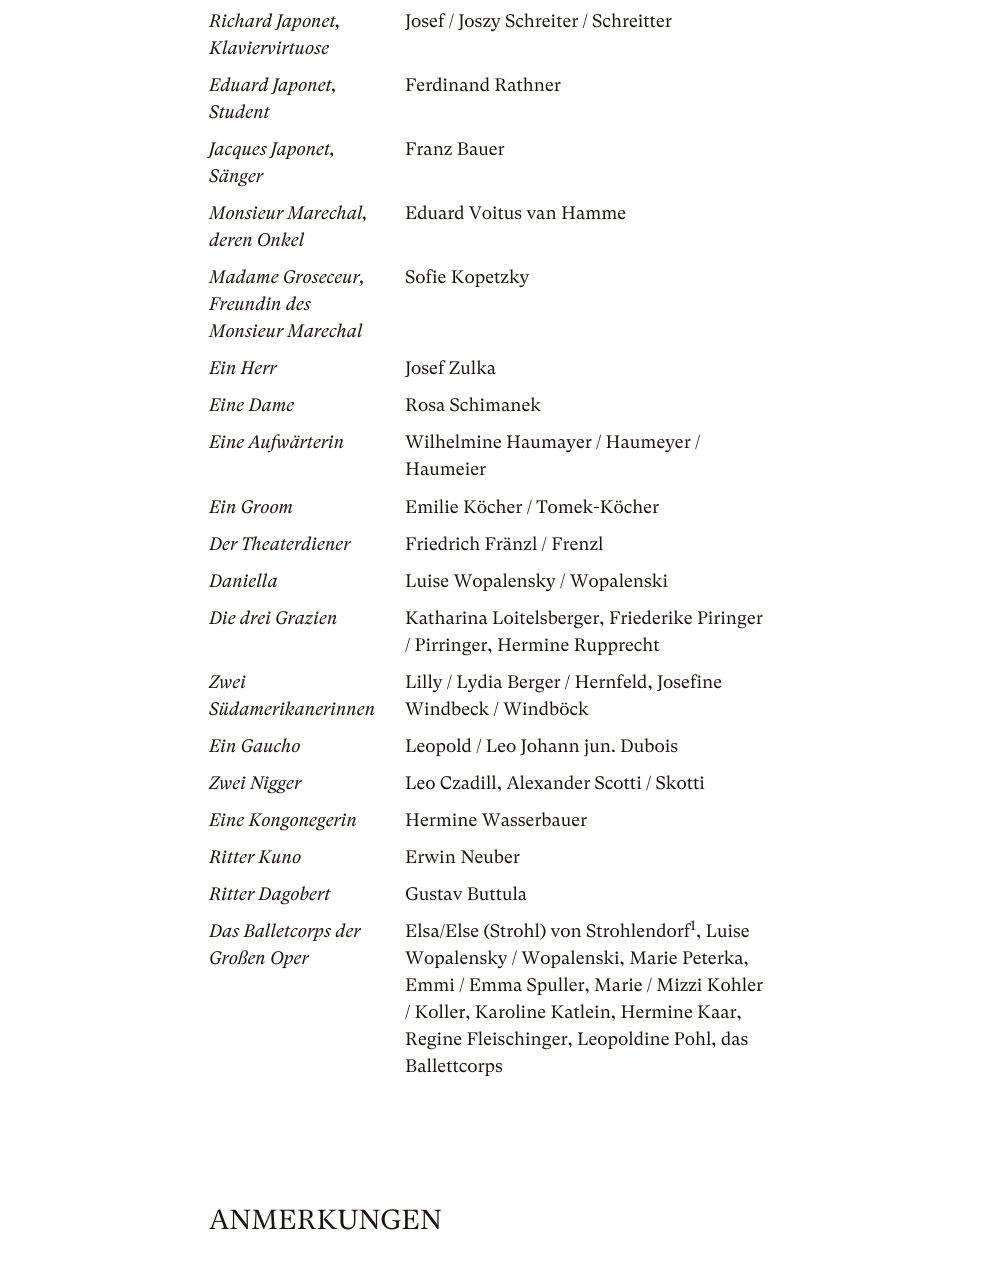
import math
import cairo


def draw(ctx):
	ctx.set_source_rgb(1, 1, 1)
	ctx.paint()
	ctx.select_font_face('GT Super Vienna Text', cairo.FONT_SLANT_ITALIC)
	ctx.set_font_size(18)
	ctx.set_source_rgb(0.098, 0.078, 0.055)
	ctx.move_to(209, 27)
	ctx.show_text('Richard Japonet,')
	ctx.move_to(209, 54)
	ctx.show_text('Klaviervirtuose')
	ctx.select_font_face('GT Super Vienna Text')
	ctx.move_to(405, 27)
	ctx.show_text('Josef / Joszy Schreiter / Schreitter')
	ctx.select_font_face('GT Super Vienna Text', cairo.FONT_SLANT_ITALIC)
	ctx.move_to(209, 91)
	ctx.show_text('Eduard Japonet,')
	ctx.move_to(209, 118)
	ctx.show_text('Student')
	ctx.select_font_face('GT Super Vienna Text')
	ctx.move_to(405, 91)
	ctx.show_text('Ferdinand Rathner')
	ctx.select_font_face('GT Super Vienna Text', cairo.FONT_SLANT_ITALIC)
	ctx.move_to(209, 155)
	ctx.show_text('Jacques Japonet,')
	ctx.move_to(209, 182)
	ctx.show_text('Sänger')
	ctx.select_font_face('GT Super Vienna Text')
	ctx.move_to(405, 155)
	ctx.show_text('Franz Bauer')
	ctx.select_font_face('GT Super Vienna Text', cairo.FONT_SLANT_ITALIC)
	ctx.move_to(209, 219)
	ctx.show_text('Monsieur Marechal,')
	ctx.move_to(209, 246)
	ctx.show_text('deren Onkel')
	ctx.select_font_face('GT Super Vienna Text')
	ctx.move_to(405, 219)
	ctx.show_text('Eduard Voitus van Hamme')
	ctx.select_font_face('GT Super Vienna Text', cairo.FONT_SLANT_ITALIC)
	for x, y, s in [
		(209, 283, 'Madame Groseceur,'),
		(209, 310, 'Freundin des'),
		(209, 337, 'Monsieur Marechal'),
	]:
		ctx.move_to(x, y)
		ctx.show_text(s)
	ctx.select_font_face('GT Super Vienna Text')
	ctx.move_to(405, 283)
	ctx.show_text('Sofie Kopetzky')
	ctx.select_font_face('GT Super Vienna Text', cairo.FONT_SLANT_ITALIC)
	ctx.move_to(209, 374)
	ctx.show_text('Ein Herr')
	ctx.select_font_face('GT Super Vienna Text')
	ctx.move_to(405, 374)
	ctx.show_text('Josef Zulka')
	ctx.select_font_face('GT Super Vienna Text', cairo.FONT_SLANT_ITALIC)
	ctx.move_to(209, 411)
	ctx.show_text('Eine Dame')
	ctx.select_font_face('GT Super Vienna Text')
	ctx.move_to(405, 411)
	ctx.show_text('Rosa Schimanek')
	ctx.select_font_face('GT Super Vienna Text', cairo.FONT_SLANT_ITALIC)
	ctx.move_to(209, 448)
	ctx.show_text('Eine Aufwärterin')
	ctx.select_font_face('GT Super Vienna Text')
	ctx.move_to(405, 448)
	ctx.show_text('Wilhelmine Haumayer / Haumeyer /')
	ctx.move_to(405, 475)
	ctx.show_text('Haumeier')
	ctx.select_font_face('GT Super Vienna Text', cairo.FONT_SLANT_ITALIC)
	ctx.move_to(209, 513)
	ctx.show_text('Ein Groom')
	ctx.select_font_face('GT Super Vienna Text')
	ctx.move_to(405, 513)
	ctx.show_text('Emilie Köcher / Tomek-Köcher')
	ctx.select_font_face('GT Super Vienna Text', cairo.FONT_SLANT_ITALIC)
	ctx.move_to(209, 550)
	ctx.show_text('Der Theaterdiener')
	ctx.select_font_face('GT Super Vienna Text')
	ctx.move_to(405, 550)
	ctx.show_text('Friedrich Fränzl / Frenzl')
	ctx.select_font_face('GT Super Vienna Text', cairo.FONT_SLANT_ITALIC)
	ctx.move_to(209, 587)
	ctx.show_text('Daniella')
	ctx.select_font_face('GT Super Vienna Text')
	ctx.move_to(405, 587)
	ctx.show_text('Luise Wopalensky / Wopalenski')
	ctx.select_font_face('GT Super Vienna Text', cairo.FONT_SLANT_ITALIC)
	ctx.move_to(209, 624)
	ctx.show_text('Die drei Grazien')
	ctx.select_font_face('GT Super Vienna Text')
	ctx.move_to(405, 624)
	ctx.show_text('Katharina Loitelsberger, Friederike Piringer')
	ctx.move_to(405, 651)
	ctx.show_text('/ Pirringer, Hermine Rupprecht')
	ctx.select_font_face('GT Super Vienna Text', cairo.FONT_SLANT_ITALIC)
	ctx.move_to(209, 688)
	ctx.show_text('Zwei')
	ctx.move_to(209, 715)
	ctx.show_text('Südamerikanerinnen')
	ctx.select_font_face('GT Super Vienna Text')
	ctx.move_to(405, 688)
	ctx.show_text('Lilly / Lydia Berger / Hernfeld, Josefine')
	ctx.move_to(405, 715)
	ctx.show_text('Windbeck / Windböck')
	ctx.select_font_face('GT Super Vienna Text', cairo.FONT_SLANT_ITALIC)
	ctx.move_to(209, 752)
	ctx.show_text('Ein Gaucho')
	ctx.select_font_face('GT Super Vienna Text')
	ctx.move_to(405, 752)
	ctx.show_text('Leopold / Leo Johann jun. Dubois')
	ctx.select_font_face('GT Super Vienna Text', cairo.FONT_SLANT_ITALIC)
	ctx.move_to(209, 789)
	ctx.show_text('Zwei Nigger')
	ctx.select_font_face('GT Super Vienna Text')
	ctx.move_to(405, 789)
	ctx.show_text('Leo Czadill, Alexander Scotti / Skotti')
	ctx.select_font_face('GT Super Vienna Text', cairo.FONT_SLANT_ITALIC)
	ctx.move_to(209, 826)
	ctx.show_text('Eine Kongonegerin')
	ctx.select_font_face('GT Super Vienna Text')
	ctx.move_to(405, 826)
	ctx.show_text('Hermine Wasserbauer')
	ctx.select_font_face('GT Super Vienna Text', cairo.FONT_SLANT_ITALIC)
	ctx.move_to(209, 863)
	ctx.show_text('Ritter Kuno')
	ctx.select_font_face('GT Super Vienna Text')
	ctx.move_to(405, 863)
	ctx.show_text('Erwin Neuber')
	ctx.select_font_face('GT Super Vienna Text', cairo.FONT_SLANT_ITALIC)
	ctx.move_to(209, 900)
	ctx.show_text('Ritter Dagobert')
	ctx.select_font_face('GT Super Vienna Text')
	ctx.move_to(405, 900)
	ctx.show_text('Gustav Buttula')
	ctx.select_font_face('GT Super Vienna Text', cairo.FONT_SLANT_ITALIC)
	ctx.move_to(209, 937)
	ctx.show_text('Das Balletcorps der')
	ctx.move_to(209, 964)
	ctx.show_text('Großen Oper')
	ctx.select_font_face('GT Super Vienna Text')
	ctx.move_to(405, 937)
	ctx.show_text('Elsa/Else (Strohl) von Strohlendorf')
	ctx.set_font_size(14)
	ctx.move_to(690, 930)
	ctx.show_text('1')
	ctx.set_font_size(18)
	for x, y, s in [
		(696, 937, ', Luise'),
		(405, 964, 'Wopalensky / Wopalenski, Marie Peterka,'),
		(405, 991, 'Emmi / Emma Spuller, Marie / Mizzi Kohler'),
		(405, 1018, '/ Koller, Karoline Katlein, Hermine Kaar,'),
		(405, 1045, 'Regine Fleischinger, Leopoldine Pohl, das'),
		(405, 1072, 'Ballettcorps'),
	]:
		ctx.move_to(x, y)
		ctx.show_text(s)
	ctx.set_font_size(27.5)
	ctx.move_to(209, 1229)
	ctx.show_text('ANMERKUNGEN')


surface = cairo.ImageSurface(cairo.FORMAT_RGB24, 981, 1263)
ctx = cairo.Context(surface)
options = cairo.FontOptions()
options.set_hint_metrics(cairo.HINT_METRICS_OFF)
options.set_hint_style(cairo.HINT_STYLE_NONE)
ctx.set_font_options(options)
ctx.set_miter_limit(4)
draw(ctx)
surface.write_to_png('image.png')
